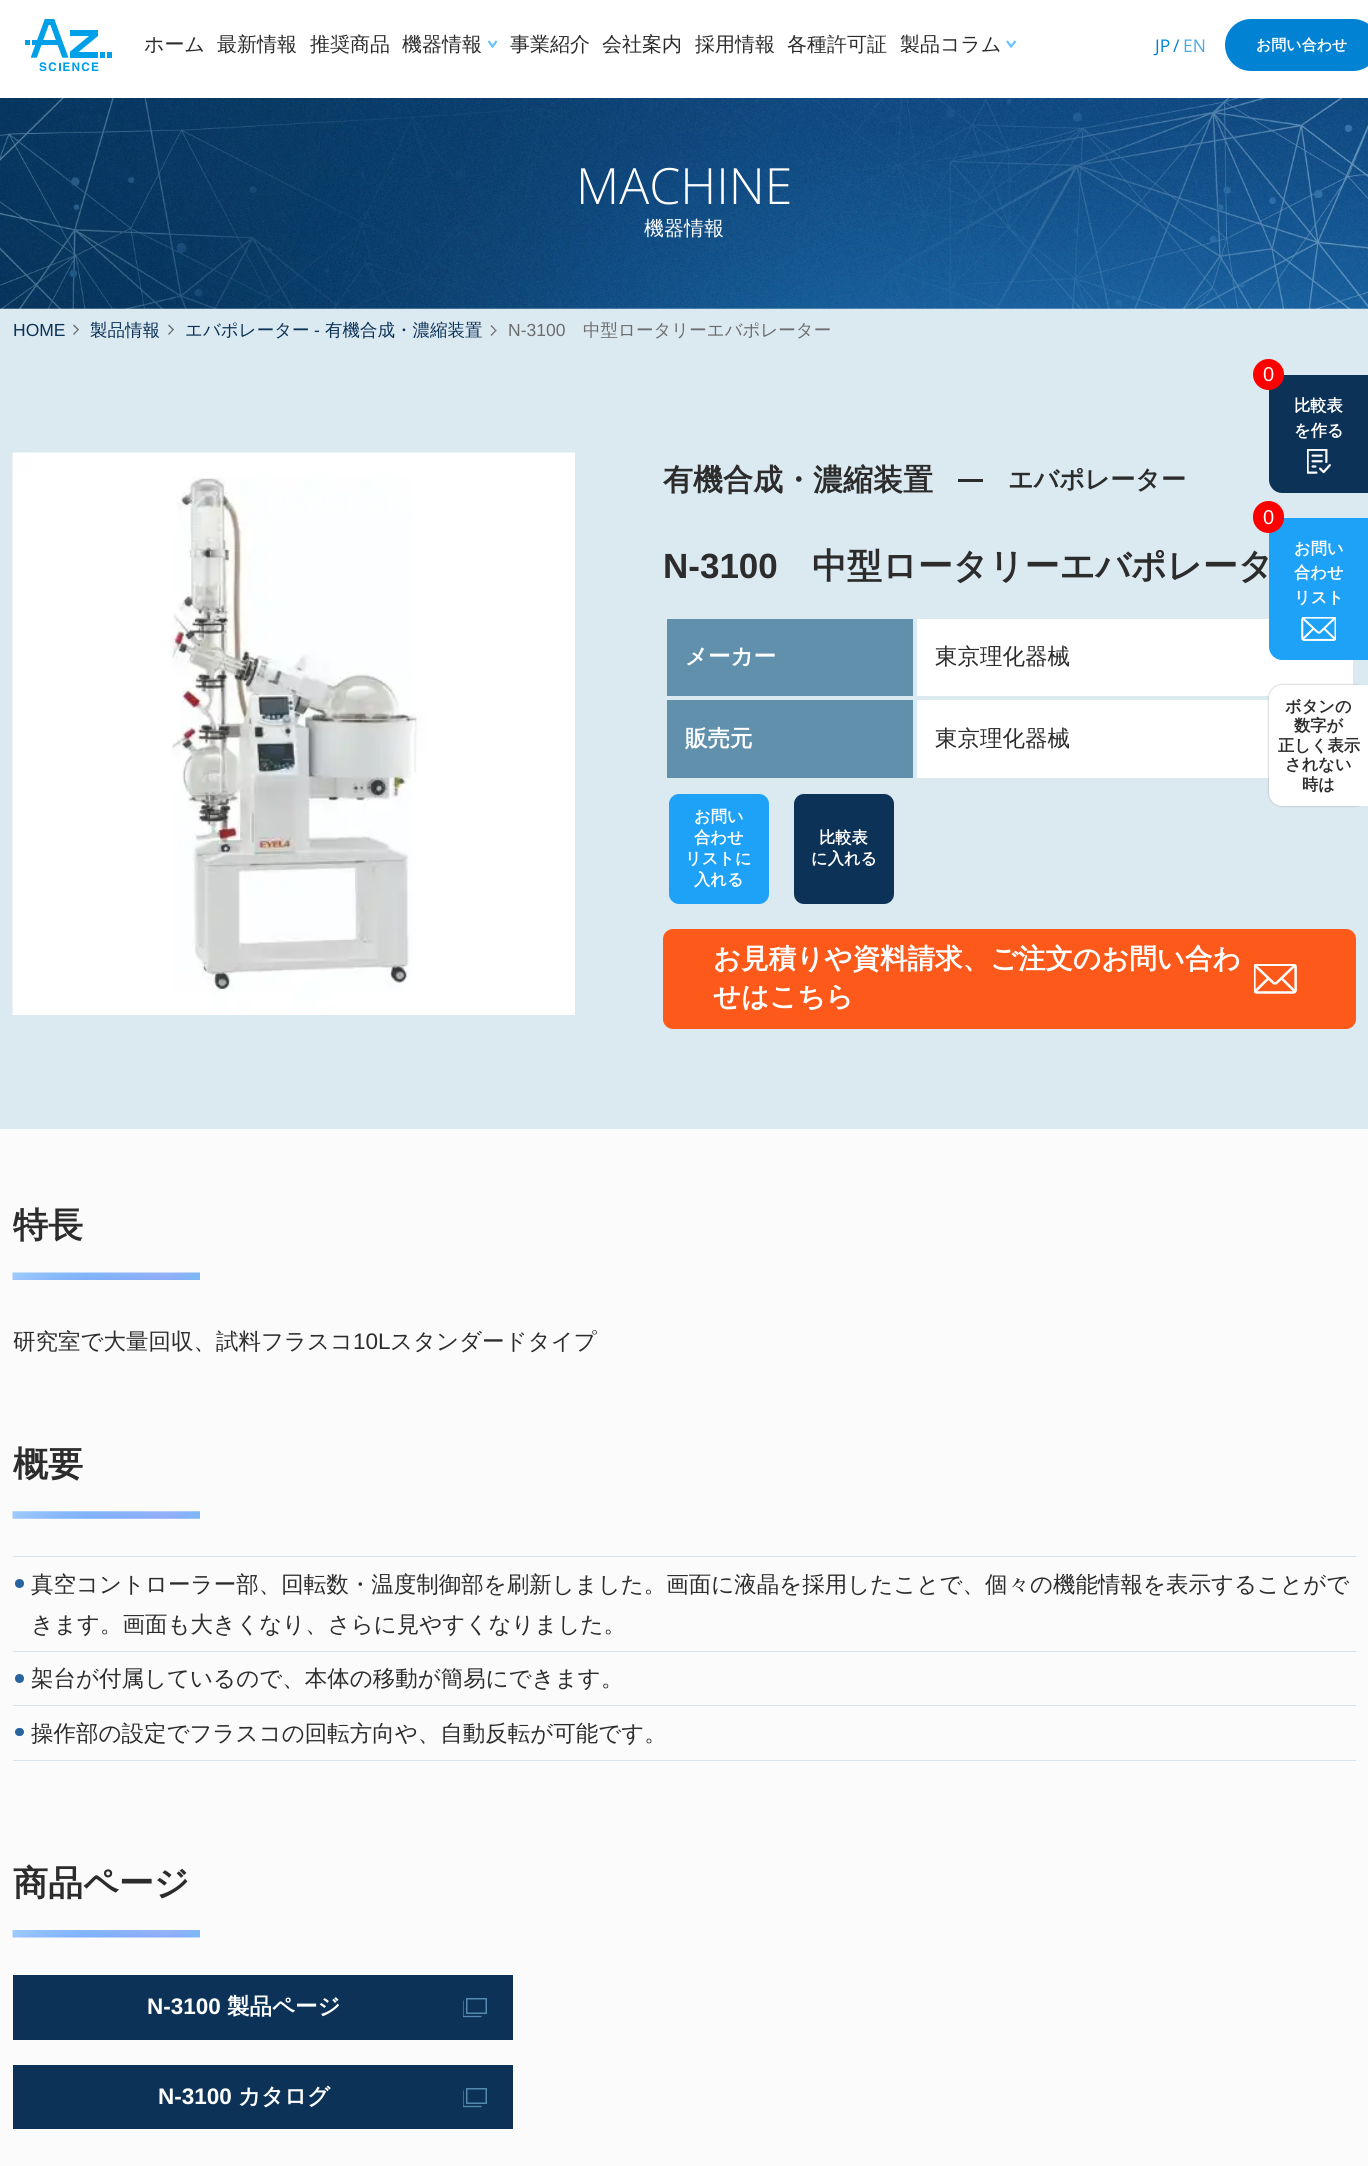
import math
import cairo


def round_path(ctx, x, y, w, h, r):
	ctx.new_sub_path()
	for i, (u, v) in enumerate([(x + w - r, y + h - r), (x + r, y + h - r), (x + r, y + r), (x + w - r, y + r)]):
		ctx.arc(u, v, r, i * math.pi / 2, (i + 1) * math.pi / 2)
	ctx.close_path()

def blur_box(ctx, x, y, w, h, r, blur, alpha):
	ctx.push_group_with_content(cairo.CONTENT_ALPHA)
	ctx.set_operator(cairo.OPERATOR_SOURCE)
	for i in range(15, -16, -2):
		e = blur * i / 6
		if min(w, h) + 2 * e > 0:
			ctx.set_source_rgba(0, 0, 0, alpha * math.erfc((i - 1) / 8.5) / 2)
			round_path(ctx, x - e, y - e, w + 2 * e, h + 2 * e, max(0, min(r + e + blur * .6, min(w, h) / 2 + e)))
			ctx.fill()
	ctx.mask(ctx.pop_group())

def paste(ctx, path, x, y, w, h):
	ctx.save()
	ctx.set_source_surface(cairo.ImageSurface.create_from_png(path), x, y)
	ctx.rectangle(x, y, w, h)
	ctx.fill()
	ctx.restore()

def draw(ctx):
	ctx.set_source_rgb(0.984, 0.984, 0.984)
	ctx.paint()
	ctx.set_source_rgb(1, 1, 1)
	ctx.rectangle(0, 0, 1368, 98)
	ctx.fill()
	paste(ctx, 'media/1.png', 25, 19, 87, 52)
	ctx.select_font_face('WenQuanYi Zen Hei Medium')
	ctx.set_font_size(20)
	ctx.set_source_rgb(0.173, 0.173, 0.173)
	for x, y, s in [
		(144, 51, 'ホーム'),
		(217, 51, '最新情報'),
		(310, 51, '推奨商品'),
	]:
		ctx.move_to(x, y)
		ctx.show_text(s)
	ctx.new_path()
	ctx.move_to(496.5, 41)
	ctx.line_to(492.5, 46.5)
	ctx.line_to(488.5, 41)
	ctx.set_source_rgb(0.4, 0.757, 0.988)
	ctx.set_line_width(2.2)
	ctx.stroke()
	ctx.set_source_rgb(0.173, 0.173, 0.173)
	for x, y, s in [
		(402, 51, '機器情報'),
		(510, 51, '事業紹介'),
		(602, 51, '会社案内'),
		(695, 51, '採用情報'),
		(787, 51, '各種許可証'),
	]:
		ctx.move_to(x, y)
		ctx.show_text(s)
	ctx.new_path()
	ctx.move_to(1015.5, 41)
	ctx.line_to(1011, 46.5)
	ctx.line_to(1007, 41)
	ctx.set_source_rgb(0.4, 0.757, 0.988)
	ctx.stroke()
	ctx.set_source_rgb(0.173, 0.173, 0.173)
	ctx.move_to(900, 51)
	ctx.show_text('製品コラム')
	ctx.select_font_face('Open Sans')
	ctx.set_font_size(17.5)
	ctx.set_source_rgb(0, 0.514, 0.843)
	ctx.move_to(1155, 52)
	ctx.show_text('JP')
	ctx.move_to(1173, 52)
	ctx.show_text('/')
	ctx.set_source_rgb(0.302, 0.659, 0.89)
	ctx.move_to(1183, 52)
	ctx.show_text('EN')
	ctx.set_source_rgb(0.004, 0.51, 0.827)
	round_path(ctx, 1225, 19, 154, 52, 26)
	ctx.fill()
	ctx.select_font_face('WenQuanYi Zen Hei', cairo.FONT_SLANT_NORMAL, cairo.FONT_WEIGHT_BOLD)
	ctx.set_font_size(15)
	ctx.set_source_rgb(1, 1, 1)
	ctx.move_to(1256, 50)
	ctx.show_text('お問い合わせ')
	paste(ctx, 'media/2.png', 0, 98, 1368, 211)
	ctx.select_font_face('Open Sans Light')
	ctx.set_font_size(50)
	ctx.move_to(576, 204)
	ctx.show_text('MACHINE')
	ctx.select_font_face('WenQuanYi Zen Hei Medium')
	ctx.set_font_size(20)
	ctx.move_to(644, 235)
	ctx.show_text('機器情報')
	ctx.set_source_rgb(0.859, 0.914, 0.945)
	ctx.rectangle(0, 309, 1368, 820)
	ctx.fill()
	ctx.select_font_face('Liberation Sans')
	ctx.set_font_size(17.5)
	ctx.set_source_rgb(0.047, 0.196, 0.341)
	ctx.move_to(13, 336)
	ctx.show_text('HOME')
	ctx.set_source_rgb(0.427, 0.427, 0.427)
	ctx.new_path()
	ctx.move_to(74, 324.5)
	ctx.line_to(79, 329.5)
	ctx.line_to(78, 330.5)
	ctx.line_to(73, 325.5)
	ctx.close_path()
	ctx.fill()
	ctx.new_path()
	ctx.move_to(78, 329)
	ctx.line_to(79, 329.5)
	ctx.line_to(74, 335)
	ctx.line_to(73, 334)
	ctx.close_path()
	ctx.fill()
	ctx.select_font_face('WenQuanYi Zen Hei Medium')
	ctx.set_source_rgb(0.047, 0.196, 0.341)
	ctx.move_to(90, 336)
	ctx.show_text('製品情報')
	ctx.set_source_rgb(0.427, 0.427, 0.427)
	ctx.new_path()
	ctx.move_to(169, 324.5)
	ctx.line_to(174, 329.5)
	ctx.line_to(173, 330.5)
	ctx.line_to(168, 325.5)
	ctx.close_path()
	ctx.fill()
	ctx.new_path()
	ctx.move_to(173, 329)
	ctx.line_to(174, 329.5)
	ctx.line_to(169, 335)
	ctx.line_to(168, 334)
	ctx.close_path()
	ctx.fill()
	ctx.set_source_rgb(0.047, 0.196, 0.341)
	ctx.move_to(185, 336)
	ctx.show_text('エバポレーター')
	ctx.select_font_face('Liberation Sans')
	ctx.move_to(314, 336)
	ctx.show_text('-')
	ctx.select_font_face('WenQuanYi Zen Hei Medium')
	ctx.move_to(325, 336)
	ctx.show_text('有機合成・濃縮装置')
	ctx.set_source_rgb(0.427, 0.427, 0.427)
	ctx.new_path()
	ctx.move_to(491.5, 325)
	ctx.line_to(496.5, 330.5)
	ctx.line_to(496, 331.5)
	ctx.line_to(490.5, 326)
	ctx.close_path()
	ctx.fill()
	ctx.new_path()
	ctx.move_to(496, 329.5)
	ctx.line_to(496.5, 330.5)
	ctx.line_to(491.5, 336)
	ctx.line_to(490.5, 335)
	ctx.close_path()
	ctx.fill()
	ctx.select_font_face('Liberation Sans')
	ctx.move_to(508, 336)
	ctx.show_text('N-3100')
	ctx.select_font_face('WenQuanYi Zen Hei Medium')
	ctx.move_to(583, 336)
	ctx.show_text('中型ロータリーエバポレーター')
	paste(ctx, 'media/3.png', 12, 452, 563, 563)
	ctx.select_font_face('WenQuanYi Zen Hei', cairo.FONT_SLANT_NORMAL, cairo.FONT_WEIGHT_BOLD)
	ctx.set_font_size(30)
	ctx.set_source_rgb(0.173, 0.173, 0.173)
	ctx.move_to(663, 490)
	ctx.show_text('有機合成・濃縮装置')
	ctx.rectangle(958, 479, 25, 3)
	ctx.fill()
	ctx.set_font_size(25)
	ctx.move_to(1008, 488)
	ctx.show_text('エバポレーター')
	ctx.select_font_face('Liberation Sans', cairo.FONT_SLANT_NORMAL, cairo.FONT_WEIGHT_BOLD)
	ctx.set_font_size(35)
	ctx.move_to(663, 578)
	ctx.show_text('N-3100')
	ctx.select_font_face('WenQuanYi Zen Hei', cairo.FONT_SLANT_NORMAL, cairo.FONT_WEIGHT_BOLD)
	ctx.move_to(812, 578)
	ctx.show_text('中型ロータリーエバポレータ')
	ctx.set_source_rgb(0.376, 0.565, 0.675)
	ctx.rectangle(667, 619, 246, 77)
	ctx.fill()
	ctx.set_font_size(22.5)
	ctx.set_source_rgb(1, 1, 1)
	ctx.move_to(685, 664)
	ctx.show_text('メーカー')
	ctx.rectangle(917, 619, 436, 77)
	ctx.fill()
	ctx.select_font_face('WenQuanYi Zen Hei Medium')
	ctx.set_source_rgb(0.173, 0.173, 0.173)
	ctx.move_to(935, 664)
	ctx.show_text('東京理化器械')
	ctx.set_source_rgb(0.376, 0.565, 0.675)
	ctx.rectangle(667, 700, 246, 78)
	ctx.fill()
	ctx.select_font_face('WenQuanYi Zen Hei', cairo.FONT_SLANT_NORMAL, cairo.FONT_WEIGHT_BOLD)
	ctx.set_source_rgb(1, 1, 1)
	ctx.move_to(685, 746)
	ctx.show_text('販売元')
	ctx.rectangle(917, 700, 352, 78)
	ctx.fill()
	ctx.select_font_face('WenQuanYi Zen Hei Medium')
	ctx.set_source_rgb(0.173, 0.173, 0.173)
	ctx.move_to(935, 746)
	ctx.show_text('東京理化器械')
	ctx.set_source_rgb(0.114, 0.635, 0.965)
	round_path(ctx, 669, 794, 100, 110, 10)
	ctx.fill()
	ctx.select_font_face('WenQuanYi Zen Hei', cairo.FONT_SLANT_NORMAL, cairo.FONT_WEIGHT_BOLD)
	ctx.set_font_size(16.25)
	ctx.set_source_rgb(1, 1, 1)
	for x, y, s in [
		(694, 822, 'お問い'),
		(694, 843, '合わせ'),
		(685, 864, 'リストに'),
		(694, 885, '入れる'),
	]:
		ctx.move_to(x, y)
		ctx.show_text(s)
	ctx.set_source_rgb(0.047, 0.196, 0.341)
	round_path(ctx, 794, 794, 100, 110, 10)
	ctx.fill()
	ctx.set_source_rgb(1, 1, 1)
	ctx.move_to(819, 843)
	ctx.show_text('比較表')
	ctx.move_to(811, 864)
	ctx.show_text('に入れる')
	ctx.set_source_rgb(0.992, 0.349, 0.106)
	round_path(ctx, 663, 929, 693, 100, 10)
	ctx.fill()
	ctx.set_font_size(27.5)
	ctx.set_source_rgb(1, 1, 1)
	ctx.move_to(713, 968)
	ctx.show_text('お見積りや資料請求、ご注文のお問い合わ')
	paste(ctx, 'media/4.png', 1254, 964, 43, 30)
	ctx.move_to(713, 1006)
	ctx.show_text('せはこちら')
	ctx.set_source_rgb(0.047, 0.196, 0.341)
	ctx.new_path()
	ctx.move_to(1282, 375)
	ctx.line_to(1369, 375)
	ctx.line_to(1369, 493)
	ctx.line_to(1282, 493)
	ctx.curve_to(1275, 493, 1269, 487, 1269, 480)
	ctx.line_to(1269, 388)
	ctx.curve_to(1269, 381, 1275, 375, 1282, 375)
	ctx.close_path()
	ctx.fill()
	ctx.set_source_rgb(1, 0, 0)
	ctx.arc(1268.5, 374.5, 15.5, 0, 2 * math.pi)
	ctx.fill()
	ctx.select_font_face('Liberation Sans')
	ctx.set_font_size(20)
	ctx.set_source_rgb(1, 1, 1)
	ctx.move_to(1263, 381)
	ctx.show_text('0')
	ctx.select_font_face('WenQuanYi Zen Hei', cairo.FONT_SLANT_NORMAL, cairo.FONT_WEIGHT_BOLD)
	ctx.set_font_size(16.25)
	ctx.move_to(1294, 411)
	ctx.show_text('比較表')
	ctx.move_to(1294, 436)
	ctx.show_text('を作る')
	paste(ctx, 'media/5.png', 1307, 449, 24, 25)
	ctx.set_source_rgb(0.114, 0.635, 0.965)
	ctx.new_path()
	ctx.move_to(1282, 518)
	ctx.line_to(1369, 518)
	ctx.line_to(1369, 660)
	ctx.line_to(1282, 660)
	ctx.curve_to(1275, 660, 1269, 654, 1269, 647)
	ctx.line_to(1269, 531)
	ctx.curve_to(1269, 524, 1275, 518, 1282, 518)
	ctx.close_path()
	ctx.fill()
	ctx.set_source_rgb(1, 0, 0)
	round_path(ctx, 1253, 501, 31, 32, 15.5)
	ctx.fill()
	ctx.select_font_face('Liberation Sans')
	ctx.set_font_size(20)
	ctx.set_source_rgb(1, 1, 1)
	ctx.move_to(1263, 524)
	ctx.show_text('0')
	ctx.select_font_face('WenQuanYi Zen Hei', cairo.FONT_SLANT_NORMAL, cairo.FONT_WEIGHT_BOLD)
	ctx.set_font_size(16.25)
	for x, y, s in [
		(1294, 554, 'お問い'),
		(1294, 578, '合わせ'),
		(1294, 603, 'リスト'),
	]:
		ctx.move_to(x, y)
		ctx.show_text(s)
	paste(ctx, 'media/6.png', 1301, 617, 35, 24)
	ctx.set_source_rgb(0.667, 0.667, 0.667)
	blur_box(ctx, 1269, 685, 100, 121, 13, 1, 1)
	ctx.set_source_rgb(1, 1, 1)
	ctx.new_path()
	ctx.move_to(1282, 685)
	ctx.line_to(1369, 685)
	ctx.line_to(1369, 806)
	ctx.line_to(1282, 806)
	ctx.curve_to(1275, 806, 1269, 800, 1269, 793)
	ctx.line_to(1269, 698)
	ctx.curve_to(1269, 691, 1275, 685, 1282, 685)
	ctx.close_path()
	ctx.fill()
	ctx.set_source_rgb(0.173, 0.173, 0.173)
	for x, y, s in [
		(1285, 712, 'ボタンの'),
		(1294, 731, '数字が'),
		(1278, 751, '正しく表示'),
		(1285, 770, 'されない'),
		(1302, 790, '時は'),
	]:
		ctx.move_to(x, y)
		ctx.show_text(s)
	ctx.set_font_size(35)
	ctx.move_to(13, 1237)
	ctx.show_text('特長')
	paste(ctx, 'media/7.png', 12, 1272, 188, 8)
	ctx.select_font_face('WenQuanYi Zen Hei Medium')
	ctx.set_font_size(22.5)
	ctx.move_to(13, 1349)
	ctx.show_text('研究室で大量回収、試料フラスコ')
	ctx.select_font_face('Liberation Sans')
	ctx.move_to(353, 1349)
	ctx.show_text('10L')
	ctx.select_font_face('WenQuanYi Zen Hei Medium')
	ctx.move_to(390, 1349)
	ctx.show_text('スタンダードタイプ')
	ctx.select_font_face('WenQuanYi Zen Hei', cairo.FONT_SLANT_NORMAL, cairo.FONT_WEIGHT_BOLD)
	ctx.set_font_size(35)
	ctx.move_to(13, 1476)
	ctx.show_text('概要')
	paste(ctx, 'media/8.png', 12, 1511, 188, 8)
	ctx.set_source_rgb(0.847, 0.894, 0.925)
	ctx.rectangle(13, 1556, 1343, 1)
	ctx.fill()
	ctx.rectangle(13, 1651, 1343, 1)
	ctx.fill()
	ctx.set_source_rgb(0.161, 0.392, 0.62)
	ctx.arc(19.5, 1583.5, 4.5, 0, 2 * math.pi)
	ctx.fill()
	ctx.select_font_face('WenQuanYi Zen Hei Medium')
	ctx.set_font_size(22.5)
	ctx.set_source_rgb(0.173, 0.173, 0.173)
	ctx.move_to(31, 1592)
	ctx.show_text('真空コントローラー部、回転数・温度制御部を刷新しました。画面に液晶を採用したことで、個々の機能情報を表示することがで')
	ctx.move_to(31, 1632)
	ctx.show_text('きます。画面も大きくなり、さらに見やすくなりました。')
	ctx.set_source_rgb(0.847, 0.894, 0.925)
	ctx.rectangle(13, 1705, 1343, 1)
	ctx.fill()
	ctx.set_source_rgb(0.161, 0.392, 0.62)
	ctx.arc(19.5, 1678.5, 4.5, 0, 2 * math.pi)
	ctx.fill()
	ctx.set_source_rgb(0.173, 0.173, 0.173)
	ctx.move_to(31, 1686)
	ctx.show_text('架台が付属しているので、本体の移動が簡易にできます。')
	ctx.set_source_rgb(0.847, 0.894, 0.925)
	ctx.rectangle(13, 1760, 1343, 1)
	ctx.fill()
	ctx.set_source_rgb(0.161, 0.392, 0.62)
	round_path(ctx, 15, 1728, 9, 8, 4)
	ctx.fill()
	ctx.set_source_rgb(0.173, 0.173, 0.173)
	ctx.move_to(31, 1741)
	ctx.show_text('操作部の設定でフラスコの回転方向や、自動反転が可能です。')
	ctx.select_font_face('WenQuanYi Zen Hei', cairo.FONT_SLANT_NORMAL, cairo.FONT_WEIGHT_BOLD)
	ctx.set_font_size(35)
	ctx.move_to(13, 1895)
	ctx.show_text('商品ページ')
	paste(ctx, 'media/9.png', 12, 1930, 188, 8)
	ctx.set_source_rgb(0.047, 0.196, 0.341)
	ctx.rectangle(13, 1975, 500, 65)
	ctx.fill()
	ctx.select_font_face('Liberation Sans', cairo.FONT_SLANT_NORMAL, cairo.FONT_WEIGHT_BOLD)
	ctx.set_font_size(22.5)
	ctx.set_source_rgb(1, 1, 1)
	ctx.move_to(147, 2014)
	ctx.show_text('N-3100')
	ctx.select_font_face('WenQuanYi Zen Hei', cairo.FONT_SLANT_NORMAL, cairo.FONT_WEIGHT_BOLD)
	ctx.move_to(227, 2014)
	ctx.show_text('製品ページ')
	ctx.rectangle(466.75, 1998.75, 19.5, 14.5)
	ctx.set_source_rgb(0.329, 0.541, 0.694)
	ctx.set_line_width(1.5)
	ctx.stroke()
	ctx.save()
	ctx.rectangle(463, 1998, 25, 20)
	ctx.clip()
	ctx.new_path()
	ctx.move_to(463, 2000.5)
	ctx.line_to(463, 2016.5)
	ctx.line_to(481.5, 2016.5)
	ctx.set_line_width(1.3)
	ctx.stroke()
	ctx.restore()
	ctx.set_source_rgb(0.047, 0.196, 0.341)
	ctx.rectangle(13, 2065, 500, 64)
	ctx.fill()
	ctx.select_font_face('Liberation Sans', cairo.FONT_SLANT_NORMAL, cairo.FONT_WEIGHT_BOLD)
	ctx.set_source_rgb(1, 1, 1)
	ctx.move_to(158, 2104)
	ctx.show_text('N-3100')
	ctx.select_font_face('WenQuanYi Zen Hei', cairo.FONT_SLANT_NORMAL, cairo.FONT_WEIGHT_BOLD)
	ctx.move_to(238, 2104)
	ctx.show_text('カタログ')
	ctx.rectangle(466.75, 2088.75, 19.5, 14.5)
	ctx.set_source_rgb(0.329, 0.541, 0.694)
	ctx.stroke()
	ctx.save()
	ctx.rectangle(463, 2088, 25, 20)
	ctx.clip()
	ctx.new_path()
	ctx.move_to(463, 2090.5)
	ctx.line_to(463, 2106.5)
	ctx.line_to(481.5, 2106.5)
	ctx.set_line_width(1.3)
	ctx.stroke()
	ctx.restore()


surface = cairo.ImageSurface(cairo.FORMAT_RGB24, 1368, 2166)
ctx = cairo.Context(surface)
options = cairo.FontOptions()
options.set_hint_metrics(cairo.HINT_METRICS_OFF)
options.set_hint_style(cairo.HINT_STYLE_NONE)
ctx.set_font_options(options)
ctx.set_miter_limit(4)
draw(ctx)
surface.write_to_png('image.png')
